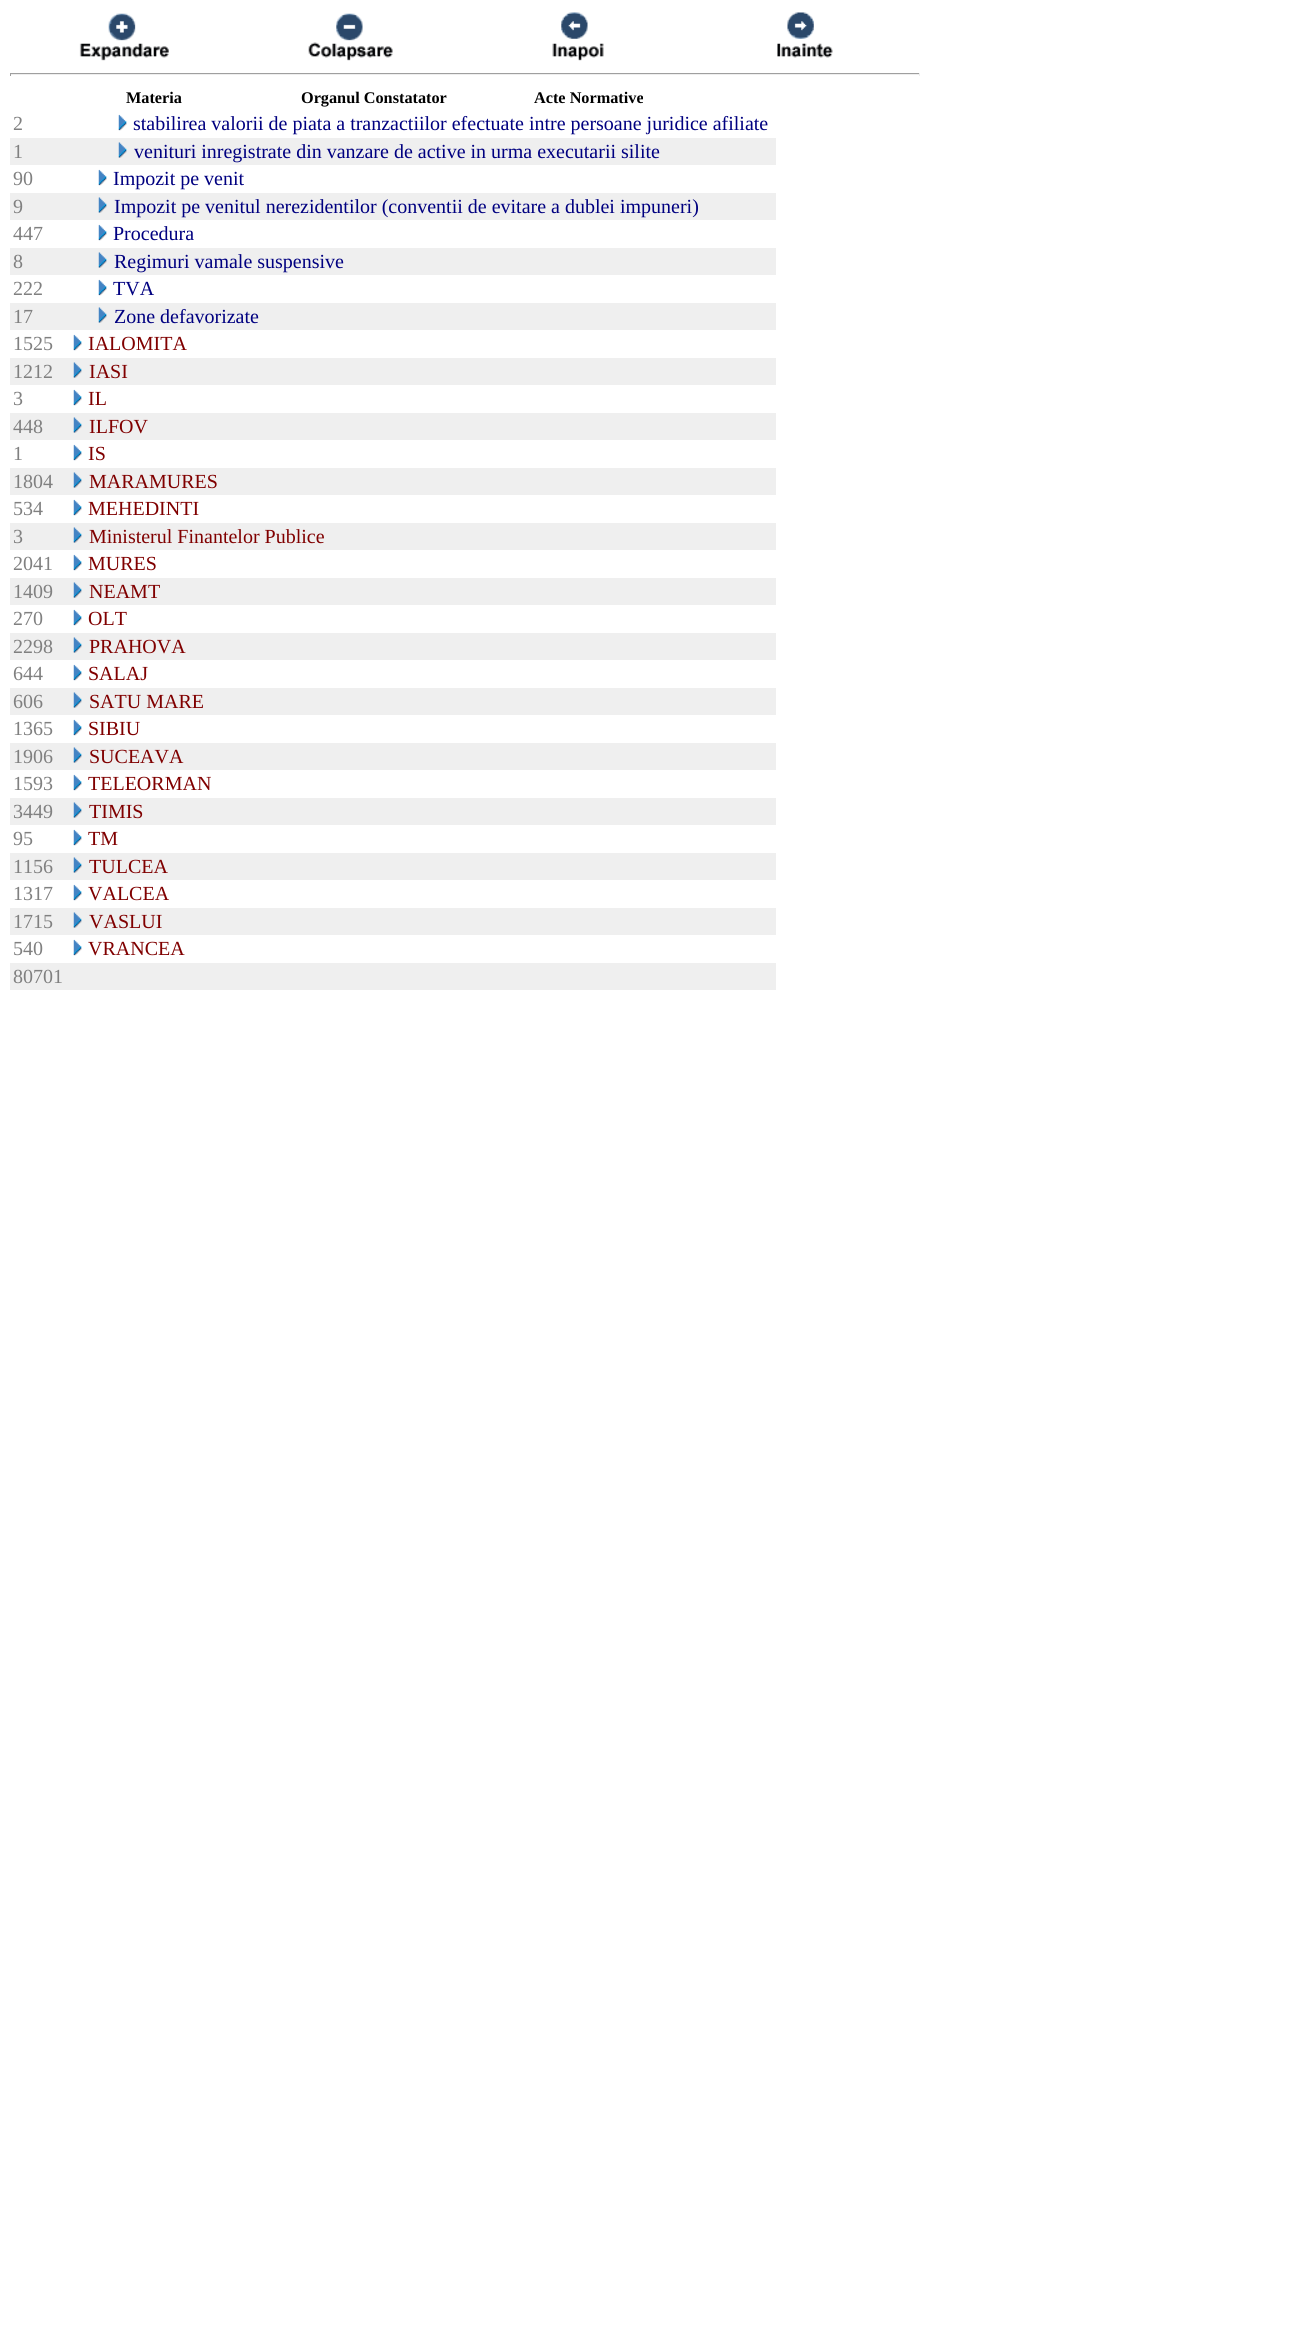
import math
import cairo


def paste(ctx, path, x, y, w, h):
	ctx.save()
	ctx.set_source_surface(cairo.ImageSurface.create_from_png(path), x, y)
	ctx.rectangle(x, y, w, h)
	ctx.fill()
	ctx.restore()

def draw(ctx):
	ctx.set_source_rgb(1, 1, 1)
	ctx.paint()
	paste(ctx, 'media/1.png', 79, 13, 90, 48)
	paste(ctx, 'media/2.png', 308, 13, 85, 48)
	paste(ctx, 'media/3.png', 552, 12, 52, 49)
	paste(ctx, 'media/4.png', 777, 12, 56, 46)
	ctx.set_source_rgb(0.624, 0.624, 0.624)
	ctx.rectangle(10, 73, 910, 1)
	ctx.fill()
	ctx.set_source_rgb(0.933, 0.933, 0.933)
	ctx.rectangle(919, 73, 1, 3)
	ctx.rectangle(10, 74, 910, 1)
	ctx.fill()
	ctx.set_source_rgb(0.624, 0.624, 0.624)
	ctx.rectangle(10, 73, 1, 3)
	ctx.fill()
	ctx.select_font_face('Liberation Serif', cairo.FONT_SLANT_NORMAL, cairo.FONT_WEIGHT_BOLD)
	ctx.set_font_size(16.25)
	ctx.set_source_rgb(0, 0, 0)
	for x, y, s in [
		(126, 103, 'Materia'),
		(301, 103, 'Organul Constatator'),
		(534, 103, 'Acte Normative'),
	]:
		ctx.move_to(x, y)
		ctx.show_text(s)
	ctx.select_font_face('Liberation Serif')
	ctx.set_font_size(20)
	ctx.set_source_rgb(0.502, 0.502, 0.502)
	ctx.move_to(13, 130)
	ctx.show_text('2')
	paste(ctx, 'media/5.png', 118, 114, 9, 17)
	ctx.set_source_rgb(0, 0, 0.502)
	ctx.move_to(133, 130)
	ctx.show_text('stabilirea valorii de piata a tranzactiilor efectuate intre persoane juridice afiliate')
	ctx.set_source_rgb(0.937, 0.937, 0.937)
	ctx.rectangle(10, 138, 766, 27)
	ctx.fill()
	ctx.set_source_rgb(0.502, 0.502, 0.502)
	ctx.move_to(13, 158)
	ctx.show_text('1')
	paste(ctx, 'media/6.png', 118, 142, 9, 16)
	ctx.set_source_rgb(0, 0, 0.502)
	ctx.move_to(134, 158)
	ctx.show_text('venituri inregistrate din vanzare de active in urma executarii silite')
	ctx.set_source_rgb(0.502, 0.502, 0.502)
	ctx.move_to(13, 185)
	ctx.show_text('90')
	paste(ctx, 'media/5.png', 98, 169, 9, 17)
	ctx.set_source_rgb(0, 0, 0.502)
	ctx.move_to(113, 185)
	ctx.show_text('Impozit pe venit')
	ctx.set_source_rgb(0.937, 0.937, 0.937)
	ctx.rectangle(10, 193, 766, 27)
	ctx.fill()
	ctx.set_source_rgb(0.502, 0.502, 0.502)
	ctx.move_to(13, 213)
	ctx.show_text('9')
	paste(ctx, 'media/6.png', 98, 197, 9, 16)
	ctx.set_source_rgb(0, 0, 0.502)
	ctx.move_to(114, 213)
	ctx.show_text('Impozit pe venitul nerezidentilor (conventii de evitare a dublei impuneri)')
	ctx.set_source_rgb(0.502, 0.502, 0.502)
	ctx.move_to(13, 240)
	ctx.show_text('447')
	paste(ctx, 'media/5.png', 98, 224, 9, 17)
	ctx.set_source_rgb(0, 0, 0.502)
	ctx.move_to(113, 240)
	ctx.show_text('Procedura')
	ctx.set_source_rgb(0.937, 0.937, 0.937)
	ctx.rectangle(10, 248, 766, 27)
	ctx.fill()
	ctx.set_source_rgb(0.502, 0.502, 0.502)
	ctx.move_to(13, 268)
	ctx.show_text('8')
	paste(ctx, 'media/6.png', 98, 252, 9, 16)
	ctx.set_source_rgb(0, 0, 0.502)
	ctx.move_to(114, 268)
	ctx.show_text('Regimuri vamale suspensive')
	ctx.set_source_rgb(0.502, 0.502, 0.502)
	ctx.move_to(13, 295)
	ctx.show_text('222')
	paste(ctx, 'media/5.png', 98, 279, 9, 17)
	ctx.set_source_rgb(0, 0, 0.502)
	ctx.move_to(113, 295)
	ctx.show_text('TVA')
	ctx.set_source_rgb(0.937, 0.937, 0.937)
	ctx.rectangle(10, 303, 766, 27)
	ctx.fill()
	ctx.set_source_rgb(0.502, 0.502, 0.502)
	ctx.move_to(13, 323)
	ctx.show_text('17')
	paste(ctx, 'media/6.png', 98, 307, 9, 16)
	ctx.set_source_rgb(0, 0, 0.502)
	ctx.move_to(114, 323)
	ctx.show_text('Zone defavorizate')
	ctx.set_source_rgb(0.502, 0.502, 0.502)
	ctx.move_to(13, 350)
	ctx.show_text('1525')
	paste(ctx, 'media/7.png', 73, 334, 9, 17)
	ctx.set_source_rgb(0.502, 0, 0)
	ctx.move_to(88, 350)
	ctx.show_text('IALOMITA')
	ctx.set_source_rgb(0.937, 0.937, 0.937)
	ctx.rectangle(10, 358, 766, 27)
	ctx.fill()
	ctx.set_source_rgb(0.502, 0.502, 0.502)
	ctx.move_to(13, 378)
	ctx.show_text('1212')
	paste(ctx, 'media/8.png', 73, 362, 9, 16)
	ctx.set_source_rgb(0.502, 0, 0)
	ctx.move_to(89, 378)
	ctx.show_text('IASI')
	ctx.set_source_rgb(0.502, 0.502, 0.502)
	ctx.move_to(13, 405)
	ctx.show_text('3')
	paste(ctx, 'media/7.png', 73, 389, 9, 17)
	ctx.set_source_rgb(0.502, 0, 0)
	ctx.move_to(88, 405)
	ctx.show_text('IL')
	ctx.set_source_rgb(0.937, 0.937, 0.937)
	ctx.rectangle(10, 413, 766, 27)
	ctx.fill()
	ctx.set_source_rgb(0.502, 0.502, 0.502)
	ctx.move_to(13, 433)
	ctx.show_text('448')
	paste(ctx, 'media/8.png', 73, 417, 9, 16)
	ctx.set_source_rgb(0.502, 0, 0)
	ctx.move_to(89, 433)
	ctx.show_text('ILFOV')
	ctx.set_source_rgb(0.502, 0.502, 0.502)
	ctx.move_to(13, 460)
	ctx.show_text('1')
	paste(ctx, 'media/7.png', 73, 444, 9, 17)
	ctx.set_source_rgb(0.502, 0, 0)
	ctx.move_to(88, 460)
	ctx.show_text('IS')
	ctx.set_source_rgb(0.937, 0.937, 0.937)
	ctx.rectangle(10, 468, 766, 27)
	ctx.fill()
	ctx.set_source_rgb(0.502, 0.502, 0.502)
	ctx.move_to(13, 488)
	ctx.show_text('1804')
	paste(ctx, 'media/8.png', 73, 472, 9, 16)
	ctx.set_source_rgb(0.502, 0, 0)
	ctx.move_to(89, 488)
	ctx.show_text('MARAMURES')
	ctx.set_source_rgb(0.502, 0.502, 0.502)
	ctx.move_to(13, 515)
	ctx.show_text('534')
	paste(ctx, 'media/7.png', 73, 499, 9, 17)
	ctx.set_source_rgb(0.502, 0, 0)
	ctx.move_to(88, 515)
	ctx.show_text('MEHEDINTI')
	ctx.set_source_rgb(0.937, 0.937, 0.937)
	ctx.rectangle(10, 523, 766, 27)
	ctx.fill()
	ctx.set_source_rgb(0.502, 0.502, 0.502)
	ctx.move_to(13, 543)
	ctx.show_text('3')
	paste(ctx, 'media/8.png', 73, 527, 9, 16)
	ctx.set_source_rgb(0.502, 0, 0)
	ctx.move_to(89, 543)
	ctx.show_text('Ministerul Finantelor Publice')
	ctx.set_source_rgb(0.502, 0.502, 0.502)
	ctx.move_to(13, 570)
	ctx.show_text('2041')
	paste(ctx, 'media/7.png', 73, 554, 9, 17)
	ctx.set_source_rgb(0.502, 0, 0)
	ctx.move_to(88, 570)
	ctx.show_text('MURES')
	ctx.set_source_rgb(0.937, 0.937, 0.937)
	ctx.rectangle(10, 578, 766, 27)
	ctx.fill()
	ctx.set_source_rgb(0.502, 0.502, 0.502)
	ctx.move_to(13, 598)
	ctx.show_text('1409')
	paste(ctx, 'media/9.png', 73, 582, 9, 16)
	ctx.set_source_rgb(0.502, 0, 0)
	ctx.move_to(89, 598)
	ctx.show_text('NEAMT')
	ctx.set_source_rgb(0.502, 0.502, 0.502)
	ctx.move_to(13, 625)
	ctx.show_text('270')
	paste(ctx, 'media/7.png', 73, 609, 9, 17)
	ctx.set_source_rgb(0.502, 0, 0)
	ctx.move_to(88, 625)
	ctx.show_text('OLT')
	ctx.set_source_rgb(0.937, 0.937, 0.937)
	ctx.rectangle(10, 633, 766, 27)
	ctx.fill()
	ctx.set_source_rgb(0.502, 0.502, 0.502)
	ctx.move_to(13, 653)
	ctx.show_text('2298')
	paste(ctx, 'media/8.png', 73, 637, 9, 16)
	ctx.set_source_rgb(0.502, 0, 0)
	ctx.move_to(89, 653)
	ctx.show_text('PRAHOVA')
	ctx.set_source_rgb(0.502, 0.502, 0.502)
	ctx.move_to(13, 680)
	ctx.show_text('644')
	paste(ctx, 'media/7.png', 73, 664, 9, 17)
	ctx.set_source_rgb(0.502, 0, 0)
	ctx.move_to(88, 680)
	ctx.show_text('SALAJ')
	ctx.set_source_rgb(0.937, 0.937, 0.937)
	ctx.rectangle(10, 688, 766, 27)
	ctx.fill()
	ctx.set_source_rgb(0.502, 0.502, 0.502)
	ctx.move_to(13, 708)
	ctx.show_text('606')
	paste(ctx, 'media/8.png', 73, 692, 9, 16)
	ctx.set_source_rgb(0.502, 0, 0)
	ctx.move_to(89, 708)
	ctx.show_text('SATU MARE')
	ctx.set_source_rgb(0.502, 0.502, 0.502)
	ctx.move_to(13, 735)
	ctx.show_text('1365')
	paste(ctx, 'media/7.png', 73, 719, 9, 17)
	ctx.set_source_rgb(0.502, 0, 0)
	ctx.move_to(88, 735)
	ctx.show_text('SIBIU')
	ctx.set_source_rgb(0.937, 0.937, 0.937)
	ctx.rectangle(10, 743, 766, 27)
	ctx.fill()
	ctx.set_source_rgb(0.502, 0.502, 0.502)
	ctx.move_to(13, 763)
	ctx.show_text('1906')
	paste(ctx, 'media/8.png', 73, 747, 9, 16)
	ctx.set_source_rgb(0.502, 0, 0)
	ctx.move_to(89, 763)
	ctx.show_text('SUCEAVA')
	ctx.set_source_rgb(0.502, 0.502, 0.502)
	ctx.move_to(13, 790)
	ctx.show_text('1593')
	paste(ctx, 'media/10.png', 73, 774, 9, 17)
	ctx.set_source_rgb(0.502, 0, 0)
	ctx.move_to(88, 790)
	ctx.show_text('TELEORMAN')
	ctx.set_source_rgb(0.937, 0.937, 0.937)
	ctx.rectangle(10, 798, 766, 27)
	ctx.fill()
	ctx.set_source_rgb(0.502, 0.502, 0.502)
	ctx.move_to(13, 818)
	ctx.show_text('3449')
	paste(ctx, 'media/8.png', 73, 802, 9, 16)
	ctx.set_source_rgb(0.502, 0, 0)
	ctx.move_to(89, 818)
	ctx.show_text('TIMIS')
	ctx.set_source_rgb(0.502, 0.502, 0.502)
	ctx.move_to(13, 845)
	ctx.show_text('95')
	paste(ctx, 'media/7.png', 73, 829, 9, 17)
	ctx.set_source_rgb(0.502, 0, 0)
	ctx.move_to(88, 845)
	ctx.show_text('TM')
	ctx.set_source_rgb(0.937, 0.937, 0.937)
	ctx.rectangle(10, 853, 766, 27)
	ctx.fill()
	ctx.set_source_rgb(0.502, 0.502, 0.502)
	ctx.move_to(13, 873)
	ctx.show_text('1156')
	paste(ctx, 'media/8.png', 73, 857, 9, 16)
	ctx.set_source_rgb(0.502, 0, 0)
	ctx.move_to(89, 873)
	ctx.show_text('TULCEA')
	ctx.set_source_rgb(0.502, 0.502, 0.502)
	ctx.move_to(13, 900)
	ctx.show_text('1317')
	paste(ctx, 'media/7.png', 73, 884, 9, 17)
	ctx.set_source_rgb(0.502, 0, 0)
	ctx.move_to(88, 900)
	ctx.show_text('VALCEA')
	ctx.set_source_rgb(0.937, 0.937, 0.937)
	ctx.rectangle(10, 908, 766, 27)
	ctx.fill()
	ctx.set_source_rgb(0.502, 0.502, 0.502)
	ctx.move_to(13, 928)
	ctx.show_text('1715')
	paste(ctx, 'media/8.png', 73, 912, 9, 16)
	ctx.set_source_rgb(0.502, 0, 0)
	ctx.move_to(89, 928)
	ctx.show_text('VASLUI')
	ctx.set_source_rgb(0.502, 0.502, 0.502)
	ctx.move_to(13, 955)
	ctx.show_text('540')
	paste(ctx, 'media/7.png', 73, 939, 9, 17)
	ctx.set_source_rgb(0.502, 0, 0)
	ctx.move_to(88, 955)
	ctx.show_text('VRANCEA')
	ctx.set_source_rgb(0.937, 0.937, 0.937)
	ctx.rectangle(10, 963, 766, 27)
	ctx.fill()
	ctx.set_source_rgb(0.502, 0.502, 0.502)
	ctx.move_to(13, 983)
	ctx.show_text('80701')


surface = cairo.ImageSurface(cairo.FORMAT_RGB24, 1294, 2332)
ctx = cairo.Context(surface)
options = cairo.FontOptions()
options.set_hint_metrics(cairo.HINT_METRICS_OFF)
options.set_hint_style(cairo.HINT_STYLE_NONE)
ctx.set_font_options(options)
ctx.set_miter_limit(4)
draw(ctx)
surface.write_to_png('image.png')
